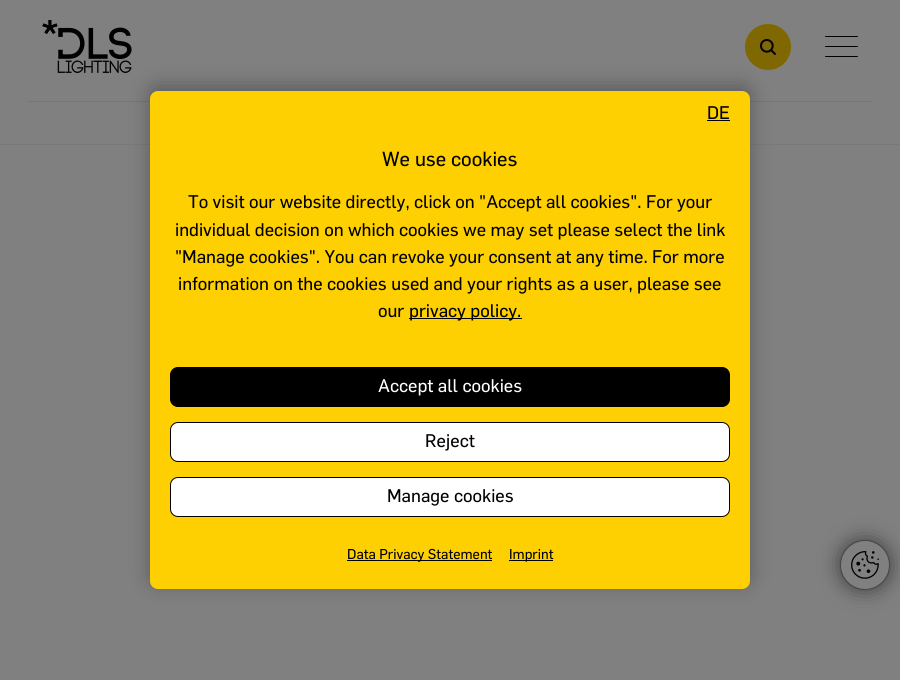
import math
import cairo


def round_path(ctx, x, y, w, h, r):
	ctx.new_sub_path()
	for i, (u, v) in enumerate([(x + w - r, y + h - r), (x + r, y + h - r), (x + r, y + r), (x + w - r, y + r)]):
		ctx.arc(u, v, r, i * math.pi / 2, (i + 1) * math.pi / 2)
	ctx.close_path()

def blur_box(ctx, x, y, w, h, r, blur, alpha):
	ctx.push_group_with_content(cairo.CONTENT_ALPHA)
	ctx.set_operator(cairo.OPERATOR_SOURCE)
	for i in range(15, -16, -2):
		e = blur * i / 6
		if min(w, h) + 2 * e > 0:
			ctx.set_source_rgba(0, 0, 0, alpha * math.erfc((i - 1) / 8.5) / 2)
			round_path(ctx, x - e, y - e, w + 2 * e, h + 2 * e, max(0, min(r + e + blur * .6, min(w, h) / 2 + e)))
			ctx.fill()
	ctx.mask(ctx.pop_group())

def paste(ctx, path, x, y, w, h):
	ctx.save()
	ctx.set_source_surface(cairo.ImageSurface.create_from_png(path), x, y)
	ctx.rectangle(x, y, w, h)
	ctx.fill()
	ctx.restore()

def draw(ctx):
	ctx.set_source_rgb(0.502, 0.502, 0.502)
	ctx.paint()
	ctx.set_source_rgb(0.463, 0.463, 0.463)
	ctx.rectangle(27, 101, 846, 1)
	ctx.fill()
	paste(ctx, 'media/1.png', 42, 20, 90, 53)
	ctx.set_source_rgb(0.498, 0.408, 0.004)
	ctx.arc(768, 47, 23, 0, 2 * math.pi)
	ctx.fill()
	paste(ctx, 'media/2.png', 760, 39, 16, 16)
	ctx.set_source_rgb(0, 0, 0)
	round_path(ctx, 825, 36, 33, 1, 0.5)
	ctx.fill()
	round_path(ctx, 825, 46, 33, 1, 0.5)
	ctx.fill()
	round_path(ctx, 825, 56, 33, 1, 0.5)
	ctx.fill()
	ctx.set_source_rgb(0.475, 0.475, 0.475)
	ctx.rectangle(0, 144, 900, 1)
	ctx.fill()
	ctx.set_source_rgb(0, 0, 0)
	blur_box(ctx, 150, 86, 600, 498, 8, 10, 0.3)
	ctx.set_source_rgb(0.996, 0.816, 0.004)
	round_path(ctx, 150, 91, 600, 498, 8)
	ctx.fill()
	ctx.select_font_face('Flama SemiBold')
	ctx.set_font_size(18)
	ctx.set_source_rgb(0, 0, 0)
	ctx.move_to(707, 119)
	ctx.show_text('DE')
	ctx.rectangle(707, 120, 23, 1)
	ctx.fill()
	ctx.set_font_size(20)
	ctx.move_to(382, 166)
	ctx.show_text('We use cookies')
	ctx.set_font_size(18)
	for x, y, s in [
		(188, 208, 'To visit our website directly, click on "Accept all cookies". For your'),
		(175, 236, 'individual decision on which cookies we may set please select the link'),
		(175, 263, '"Manage cookies". You can revoke your consent at any time. For more'),
		(178, 290, 'information on the cookies used and your rights as a user, please see'),
		(378, 317, 'our'),
	]:
		ctx.move_to(x, y)
		ctx.show_text(s)
	ctx.rectangle(409, 318, 113, 1)
	ctx.fill()
	ctx.move_to(409, 317)
	ctx.show_text('privacy policy.')
	round_path(ctx, 170.5, 367.5, 559, 39, 7.5)
	ctx.fill_preserve()
	ctx.set_line_width(1)
	ctx.stroke()
	ctx.set_source_rgb(1, 1, 1)
	ctx.move_to(378, 392)
	ctx.show_text('Accept all cookies')
	round_path(ctx, 170.5, 422.5, 559, 39, 7.5)
	ctx.fill_preserve()
	ctx.set_source_rgb(0, 0, 0)
	ctx.stroke()
	ctx.move_to(425, 447)
	ctx.show_text('Reject')
	ctx.set_source_rgb(1, 1, 1)
	round_path(ctx, 170.5, 477.5, 559, 39, 7.5)
	ctx.fill_preserve()
	ctx.set_source_rgb(0, 0, 0)
	ctx.stroke()
	ctx.move_to(387, 502)
	ctx.show_text('Manage cookies')
	ctx.rectangle(347, 560, 145, 1)
	ctx.fill()
	ctx.set_font_size(14)
	ctx.move_to(347, 559)
	ctx.show_text('Data Privacy Statement')
	ctx.rectangle(509, 560, 44, 1)
	ctx.fill()
	ctx.move_to(509, 559)
	ctx.show_text('Imprint')
	ctx.set_source_rgb(0, 0, 0)
	blur_box(ctx, 840, 540, 50, 50, 25, 10, 0.5)
	ctx.set_source_rgb(0.502, 0.502, 0.502)
	ctx.arc(865, 565, 24.5, 0, 2 * math.pi)
	ctx.fill_preserve()
	ctx.set_source_rgb(0.267, 0.267, 0.267)
	ctx.stroke()
	paste(ctx, 'media/3.png', 851, 551, 28, 28)


surface = cairo.ImageSurface(cairo.FORMAT_RGB24, 900, 680)
ctx = cairo.Context(surface)
options = cairo.FontOptions()
options.set_hint_metrics(cairo.HINT_METRICS_OFF)
options.set_hint_style(cairo.HINT_STYLE_NONE)
ctx.set_font_options(options)
ctx.set_miter_limit(4)
draw(ctx)
surface.write_to_png('image.png')
